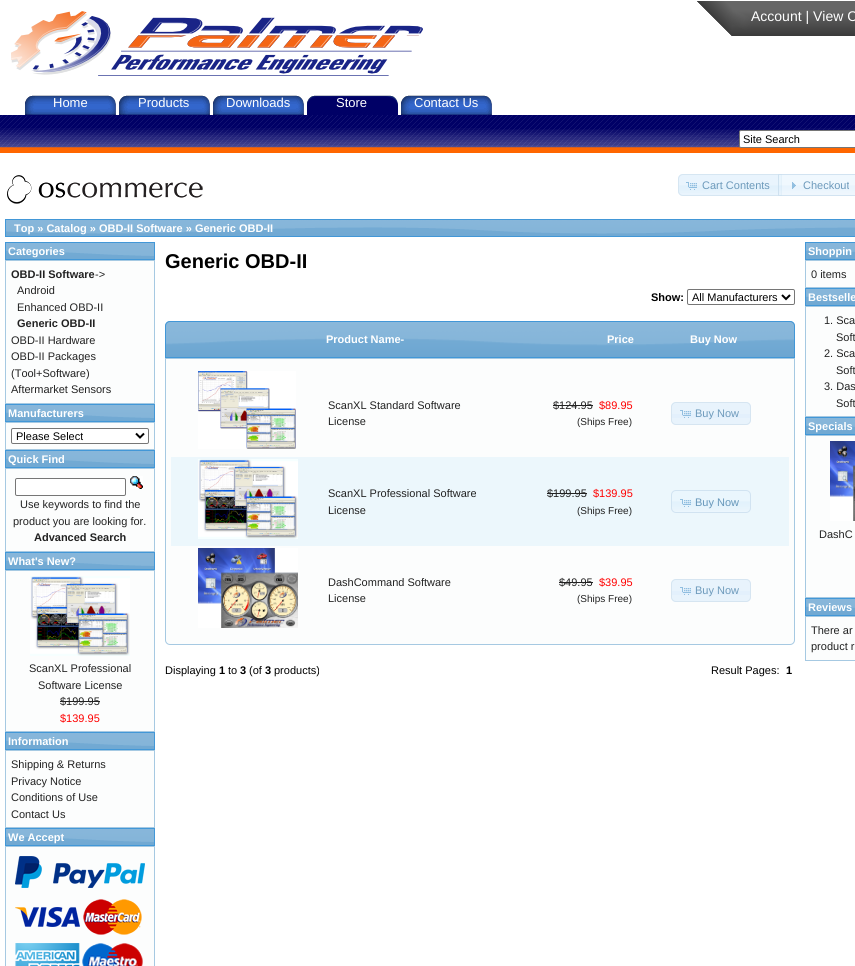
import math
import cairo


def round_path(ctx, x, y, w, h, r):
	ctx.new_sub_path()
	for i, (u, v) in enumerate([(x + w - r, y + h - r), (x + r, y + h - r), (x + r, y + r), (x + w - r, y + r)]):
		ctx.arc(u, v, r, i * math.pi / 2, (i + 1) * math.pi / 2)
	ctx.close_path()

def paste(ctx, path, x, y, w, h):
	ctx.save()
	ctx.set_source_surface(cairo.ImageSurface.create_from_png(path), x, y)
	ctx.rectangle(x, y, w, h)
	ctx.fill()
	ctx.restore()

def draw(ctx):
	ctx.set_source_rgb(1, 1, 1)
	ctx.paint()
	paste(ctx, 'media/1.png', 11, 11, 412, 65)
	paste(ctx, 'media/2.png', 696, 1, 159, 35)
	ctx.select_font_face('Liberation Sans')
	ctx.set_font_size(14)
	ctx.set_source_rgb(1, 1, 1)
	ctx.move_to(751, 21)
	ctx.show_text('Account | View C')
	paste(ctx, 'media/3.png', 25, 95, 91, 20)
	ctx.set_font_size(13)
	ctx.move_to(53, 107)
	ctx.show_text('Home')
	paste(ctx, 'media/3.png', 119, 95, 91, 20)
	ctx.move_to(138, 107)
	ctx.show_text('Products')
	paste(ctx, 'media/3.png', 213, 95, 91, 20)
	ctx.move_to(226, 107)
	ctx.show_text('Downloads')
	paste(ctx, 'media/4.png', 307, 95, 91, 20)
	ctx.move_to(336, 107)
	ctx.show_text('Store')
	paste(ctx, 'media/3.png', 401, 95, 91, 20)
	ctx.move_to(414, 107)
	ctx.show_text('Contact Us')
	paste(ctx, 'media/5.png', 0, 115, 855, 38)
	round_path(ctx, 739.5, 130.5, 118, 17, 1.5)
	ctx.fill_preserve()
	ctx.set_source_rgb(0.463, 0.463, 0.463)
	ctx.set_line_width(1)
	ctx.stroke()
	ctx.set_font_size(11)
	ctx.set_source_rgb(0, 0, 0)
	ctx.move_to(743, 143)
	ctx.show_text('Site Search')
	paste(ctx, 'media/6.png', 7, 175, 196, 29)
	ctx.set_source_rgb(0.914, 0.957, 0.992)
	ctx.new_path()
	ctx.move_to(683, 174)
	ctx.line_to(782, 174)
	ctx.line_to(782, 196)
	ctx.line_to(683, 196)
	ctx.curve_to(680, 196, 678, 194, 678, 191)
	ctx.line_to(678, 179)
	ctx.curve_to(678, 176, 680, 174, 683, 174)
	ctx.close_path()
	ctx.fill()
	paste(ctx, 'media/7.png', 678, 185, 103, 8)
	ctx.new_path()
	ctx.move_to(683, 174.5)
	ctx.line_to(781.5, 174.5)
	ctx.line_to(781.5, 195.5)
	ctx.line_to(683, 195.5)
	ctx.curve_to(680.5, 195.5, 678.5, 193.5, 678.5, 191)
	ctx.line_to(678.5, 179)
	ctx.curve_to(678.5, 176.5, 680.5, 174.5, 683, 174.5)
	ctx.close_path()
	ctx.set_source_rgb(0.839, 0.902, 0.949)
	ctx.stroke()
	paste(ctx, 'media/8.png', 686, 182, 11, 8)
	ctx.set_source_rgb(0.427, 0.604, 0.733)
	ctx.move_to(702, 189)
	ctx.show_text('Cart Contents')
	paste(ctx, 'media/9.png', 778, 174, 77, 22)
	ctx.rectangle(778.5, 174.5, 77, 21)
	ctx.set_source_rgba(0.773, 0.859, 0.925, 0.7)
	ctx.stroke()
	paste(ctx, 'media/10.png', 792, 182, 4, 7)
	ctx.set_source_rgb(0.427, 0.604, 0.733)
	ctx.move_to(803, 189)
	ctx.show_text('Checkout')
	paste(ctx, 'media/11.png', 6, 220, 849, 16)
	ctx.rectangle(5.5, 219.5, 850, 17)
	ctx.set_source_rgb(0.259, 0.592, 0.843)
	ctx.stroke()
	ctx.select_font_face('Liberation Sans', cairo.FONT_SLANT_NORMAL, cairo.FONT_WEIGHT_BOLD)
	ctx.set_source_rgb(1, 1, 1)
	ctx.move_to(14, 232)
	ctx.show_text('Top » Catalog » OBD-II Software » Generic OBD-II')
	paste(ctx, 'media/12.png', 6, 243, 148, 16)
	ctx.rectangle(5.5, 242.5, 149, 17)
	ctx.set_source_rgb(0.259, 0.592, 0.843)
	ctx.stroke()
	ctx.set_source_rgb(1, 1, 1)
	ctx.move_to(8, 255)
	ctx.show_text('Categories')
	ctx.set_source_rgb(0.988, 0.992, 0.992)
	ctx.rectangle(5.5, 260.5, 149, 143)
	ctx.fill_preserve()
	ctx.set_source_rgb(0.651, 0.788, 0.886)
	ctx.stroke()
	ctx.set_source_rgb(0.133, 0.133, 0.133)
	ctx.move_to(11, 278)
	ctx.show_text('OBD-II Software')
	ctx.select_font_face('Liberation Sans')
	for x, y, s in [
		(95, 278, '->'),
		(17, 294, 'Android'),
		(17, 311, 'Enhanced OBD-II'),
	]:
		ctx.move_to(x, y)
		ctx.show_text(s)
	ctx.select_font_face('Liberation Sans', cairo.FONT_SLANT_NORMAL, cairo.FONT_WEIGHT_BOLD)
	ctx.move_to(17, 327)
	ctx.show_text('Generic OBD-II')
	ctx.select_font_face('Liberation Sans')
	for x, y, s in [
		(11, 344, 'OBD-II Hardware'),
		(11, 360, 'OBD-II Packages'),
		(11, 377, '(Tool+Software)'),
		(11, 393, 'Aftermarket Sensors'),
	]:
		ctx.move_to(x, y)
		ctx.show_text(s)
	paste(ctx, 'media/12.png', 6, 405, 148, 16)
	ctx.rectangle(5.5, 404.5, 149, 17)
	ctx.set_source_rgb(0.259, 0.592, 0.843)
	ctx.stroke()
	ctx.select_font_face('Liberation Sans', cairo.FONT_SLANT_NORMAL, cairo.FONT_WEIGHT_BOLD)
	ctx.set_source_rgb(1, 1, 1)
	ctx.move_to(8, 417)
	ctx.show_text('Manufacturers')
	ctx.set_source_rgb(0.988, 0.992, 0.992)
	ctx.rectangle(5.5, 422.5, 149, 27)
	ctx.fill_preserve()
	ctx.set_source_rgb(0.651, 0.788, 0.886)
	ctx.stroke()
	ctx.set_source_rgb(1, 1, 1)
	round_path(ctx, 11.5, 428.5, 137, 15, 1.5)
	ctx.fill_preserve()
	ctx.set_source_rgb(0.463, 0.463, 0.463)
	ctx.stroke()
	ctx.new_path()
	ctx.move_to(136, 433.5)
	ctx.line_to(140, 437.5)
	ctx.line_to(144, 433.5)
	ctx.set_source_rgb(0, 0, 0)
	ctx.set_line_width(2)
	ctx.stroke()
	ctx.select_font_face('Liberation Sans')
	ctx.move_to(16, 440)
	ctx.show_text('Please Select')
	paste(ctx, 'media/12.png', 6, 451, 148, 16)
	ctx.rectangle(5.5, 450.5, 149, 17)
	ctx.set_source_rgb(0.259, 0.592, 0.843)
	ctx.set_line_width(1)
	ctx.stroke()
	ctx.select_font_face('Liberation Sans', cairo.FONT_SLANT_NORMAL, cairo.FONT_WEIGHT_BOLD)
	ctx.set_source_rgb(1, 1, 1)
	ctx.move_to(8, 463)
	ctx.show_text('Quick Find')
	ctx.set_source_rgb(0.988, 0.992, 0.992)
	ctx.rectangle(5.5, 468.5, 149, 83)
	ctx.fill_preserve()
	ctx.set_source_rgb(0.651, 0.788, 0.886)
	ctx.stroke()
	ctx.set_source_rgb(1, 1, 1)
	round_path(ctx, 15.5, 478.5, 110, 17, 1.5)
	ctx.fill_preserve()
	ctx.set_source_rgb(0.463, 0.463, 0.463)
	ctx.stroke()
	paste(ctx, 'media/13.png', 130, 476, 13, 13)
	ctx.select_font_face('Liberation Sans')
	ctx.set_source_rgb(0.133, 0.133, 0.133)
	ctx.move_to(20, 508)
	ctx.show_text('Use keywords to find the')
	ctx.move_to(13, 525)
	ctx.show_text('product you are looking for.')
	ctx.select_font_face('Liberation Sans', cairo.FONT_SLANT_NORMAL, cairo.FONT_WEIGHT_BOLD)
	ctx.move_to(34, 541)
	ctx.show_text('Advanced Search')
	paste(ctx, 'media/12.png', 6, 553, 148, 16)
	ctx.rectangle(5.5, 552.5, 149, 17)
	ctx.set_source_rgb(0.259, 0.592, 0.843)
	ctx.stroke()
	ctx.set_source_rgb(1, 1, 1)
	ctx.move_to(8, 565)
	ctx.show_text('What\'s New?')
	ctx.set_source_rgb(0.988, 0.992, 0.992)
	ctx.rectangle(5.5, 570.5, 149, 161)
	ctx.fill_preserve()
	ctx.set_source_rgb(0.651, 0.788, 0.886)
	ctx.stroke()
	paste(ctx, 'media/14.png', 30, 576, 100, 80)
	ctx.select_font_face('Liberation Sans')
	ctx.set_source_rgb(0.133, 0.133, 0.133)
	for x, y, s in [
		(29, 672, 'ScanXL Professional'),
		(38, 689, 'Software License'),
		(60, 705, '$199.95'),
	]:
		ctx.move_to(x, y)
		ctx.show_text(s)
	ctx.rectangle(60, 701, 40, 1)
	ctx.fill()
	ctx.set_source_rgb(1, 0, 0)
	ctx.move_to(60, 722)
	ctx.show_text('$139.95')
	paste(ctx, 'media/12.png', 6, 733, 148, 16)
	ctx.rectangle(5.5, 732.5, 149, 17)
	ctx.set_source_rgb(0.259, 0.592, 0.843)
	ctx.stroke()
	ctx.select_font_face('Liberation Sans', cairo.FONT_SLANT_NORMAL, cairo.FONT_WEIGHT_BOLD)
	ctx.set_source_rgb(1, 1, 1)
	ctx.move_to(8, 745)
	ctx.show_text('Information')
	ctx.set_source_rgb(0.988, 0.992, 0.992)
	ctx.rectangle(5.5, 750.5, 149, 77)
	ctx.fill_preserve()
	ctx.set_source_rgb(0.651, 0.788, 0.886)
	ctx.stroke()
	ctx.select_font_face('Liberation Sans')
	ctx.set_source_rgb(0.133, 0.133, 0.133)
	for x, y, s in [
		(11, 768, 'Shipping & Returns'),
		(11, 785, 'Privacy Notice'),
		(11, 801, 'Conditions of Use'),
		(11, 818, 'Contact Us'),
	]:
		ctx.move_to(x, y)
		ctx.show_text(s)
	paste(ctx, 'media/12.png', 6, 829, 148, 16)
	ctx.rectangle(5.5, 828.5, 149, 17)
	ctx.set_source_rgb(0.259, 0.592, 0.843)
	ctx.stroke()
	ctx.select_font_face('Liberation Sans', cairo.FONT_SLANT_NORMAL, cairo.FONT_WEIGHT_BOLD)
	ctx.set_source_rgb(1, 1, 1)
	ctx.move_to(8, 841)
	ctx.show_text('We Accept')
	ctx.set_source_rgb(0.988, 0.992, 0.992)
	ctx.rectangle(5.5, 846.5, 149, 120)
	ctx.fill_preserve()
	ctx.set_source_rgb(0.651, 0.788, 0.886)
	ctx.stroke()
	paste(ctx, 'media/15.png', 15, 856, 130, 32)
	paste(ctx, 'media/16.png', 15, 907, 65, 20)
	paste(ctx, 'media/17.png', 83, 899, 59, 36)
	paste(ctx, 'media/18.png', 15, 943, 65, 23)
	paste(ctx, 'media/19.png', 82, 943, 61, 23)
	ctx.set_font_size(20)
	ctx.set_source_rgb(0, 0, 0)
	ctx.move_to(165, 268)
	ctx.show_text('Generic OBD-II')
	ctx.set_font_size(11)
	ctx.move_to(651, 301)
	ctx.show_text('Show:')
	round_path(ctx, 687.5, 289.5, 107, 15, 1.5)
	ctx.set_source_rgb(0.463, 0.463, 0.463)
	ctx.stroke()
	ctx.new_path()
	ctx.move_to(782, 295)
	ctx.line_to(786, 299)
	ctx.line_to(790, 295)
	ctx.set_source_rgb(0, 0, 0)
	ctx.set_line_width(2)
	ctx.stroke()
	ctx.select_font_face('Liberation Sans')
	ctx.move_to(692, 301)
	ctx.show_text('All Manufacturers')
	paste(ctx, 'media/20.png', 165, 321, 630, 36)
	ctx.new_path()
	ctx.move_to(170, 321.5)
	ctx.line_to(790, 321.5)
	ctx.curve_to(792.5, 321.5, 794.5, 323.5, 794.5, 326)
	ctx.line_to(794.5, 357.5)
	ctx.line_to(165.5, 357.5)
	ctx.line_to(165.5, 326)
	ctx.curve_to(165.5, 323.5, 167.5, 321.5, 170, 321.5)
	ctx.close_path()
	ctx.set_source_rgb(0.259, 0.592, 0.843)
	ctx.set_line_width(1)
	ctx.stroke()
	ctx.select_font_face('Liberation Sans', cairo.FONT_SLANT_NORMAL, cairo.FONT_WEIGHT_BOLD)
	ctx.set_source_rgb(1, 1, 1)
	for x, y, s in [
		(326, 343, 'Product Name-'),
		(607, 343, 'Price'),
		(690, 343, 'Buy Now'),
	]:
		ctx.move_to(x, y)
		ctx.show_text(s)
	ctx.set_source_rgb(0.988, 0.992, 0.992)
	ctx.new_path()
	ctx.move_to(165.5, 358.5)
	ctx.line_to(794.5, 358.5)
	ctx.line_to(794.5, 640)
	ctx.curve_to(794.5, 642.5, 792.5, 644.5, 790, 644.5)
	ctx.line_to(170, 644.5)
	ctx.curve_to(167.5, 644.5, 165.5, 642.5, 165.5, 640)
	ctx.close_path()
	ctx.fill_preserve()
	ctx.set_source_rgb(0.651, 0.788, 0.886)
	ctx.stroke()
	paste(ctx, 'media/21.png', 198, 371, 98, 78)
	ctx.select_font_face('Liberation Sans')
	ctx.set_source_rgb(0.133, 0.133, 0.133)
	for x, y, s in [
		(328, 409, 'ScanXL Standard Software'),
		(328, 425, 'License'),
		(553, 409, '$124.95'),
	]:
		ctx.move_to(x, y)
		ctx.show_text(s)
	ctx.rectangle(553, 405, 40, 1)
	ctx.fill()
	ctx.set_source_rgb(1, 0, 0)
	ctx.move_to(599, 409)
	ctx.show_text('$89.95')
	ctx.set_font_size(10)
	ctx.set_source_rgb(0.133, 0.133, 0.133)
	ctx.move_to(577, 425)
	ctx.show_text('(Ships Free)')
	ctx.set_source_rgb(0.91, 0.953, 0.988)
	round_path(ctx, 671, 402, 80, 23, 5)
	ctx.fill()
	ctx.set_source_rgb(0.89, 0.941, 0.988)
	ctx.rectangle(671, 414, 80, 4)
	ctx.fill()
	round_path(ctx, 671.5, 402.5, 79, 22, 4.5)
	ctx.set_source_rgb(0.839, 0.898, 0.945)
	ctx.stroke()
	paste(ctx, 'media/22.png', 680, 410, 11, 8)
	ctx.set_font_size(11)
	ctx.set_source_rgb(0.427, 0.604, 0.733)
	ctx.move_to(695, 417)
	ctx.show_text('Buy Now')
	ctx.set_source_rgb(0.925, 0.965, 0.988)
	ctx.rectangle(171, 457, 618, 89)
	ctx.fill()
	paste(ctx, 'media/14.png', 198, 459, 100, 80)
	ctx.set_source_rgb(0.133, 0.133, 0.133)
	for x, y, s in [
		(328, 497, 'ScanXL Professional Software'),
		(328, 514, 'License'),
		(547, 497, '$199.95'),
	]:
		ctx.move_to(x, y)
		ctx.show_text(s)
	ctx.rectangle(547, 493, 40, 1)
	ctx.fill()
	ctx.set_source_rgb(1, 0, 0)
	ctx.move_to(593, 497)
	ctx.show_text('$139.95')
	ctx.set_font_size(10)
	ctx.set_source_rgb(0.133, 0.133, 0.133)
	ctx.move_to(577, 514)
	ctx.show_text('(Ships Free)')
	paste(ctx, 'media/23.png', 671, 490, 80, 23)
	round_path(ctx, 671.5, 490.5, 79, 22, 4.5)
	ctx.set_source_rgb(0.82, 0.89, 0.945)
	ctx.stroke()
	paste(ctx, 'media/24.png', 680, 499, 11, 8)
	ctx.set_font_size(11)
	ctx.set_source_rgb(0.404, 0.592, 0.729)
	ctx.move_to(695, 506)
	ctx.show_text('Buy Now')
	paste(ctx, 'media/25.png', 198, 548, 100, 80)
	ctx.set_source_rgb(0.133, 0.133, 0.133)
	for x, y, s in [
		(328, 586, 'DashCommand Software'),
		(328, 602, 'License'),
		(559, 586, '$49.95'),
	]:
		ctx.move_to(x, y)
		ctx.show_text(s)
	ctx.rectangle(559, 582, 34, 1)
	ctx.fill()
	ctx.set_source_rgb(1, 0, 0)
	ctx.move_to(599, 586)
	ctx.show_text('$39.95')
	ctx.set_font_size(10)
	ctx.set_source_rgb(0.133, 0.133, 0.133)
	ctx.move_to(577, 602)
	ctx.show_text('(Ships Free)')
	ctx.set_source_rgb(0.91, 0.953, 0.988)
	round_path(ctx, 671, 579, 80, 23, 5)
	ctx.fill()
	ctx.set_source_rgb(0.89, 0.941, 0.988)
	ctx.rectangle(671, 591, 80, 4)
	ctx.fill()
	round_path(ctx, 671.5, 579.5, 79, 22, 4.5)
	ctx.set_source_rgb(0.839, 0.898, 0.945)
	ctx.stroke()
	paste(ctx, 'media/22.png', 680, 587, 11, 8)
	ctx.set_font_size(11)
	ctx.set_source_rgb(0.427, 0.604, 0.733)
	ctx.move_to(695, 594)
	ctx.show_text('Buy Now')
	ctx.set_source_rgb(0, 0, 0)
	ctx.move_to(165, 674)
	ctx.show_text('Displaying')
	ctx.select_font_face('Liberation Sans', cairo.FONT_SLANT_NORMAL, cairo.FONT_WEIGHT_BOLD)
	ctx.move_to(219, 674)
	ctx.show_text('1')
	ctx.select_font_face('Liberation Sans')
	ctx.move_to(228, 674)
	ctx.show_text('to')
	ctx.select_font_face('Liberation Sans', cairo.FONT_SLANT_NORMAL, cairo.FONT_WEIGHT_BOLD)
	ctx.move_to(240, 674)
	ctx.show_text('3')
	ctx.select_font_face('Liberation Sans')
	ctx.move_to(249, 674)
	ctx.show_text('(of')
	ctx.select_font_face('Liberation Sans', cairo.FONT_SLANT_NORMAL, cairo.FONT_WEIGHT_BOLD)
	ctx.move_to(265, 674)
	ctx.show_text('3')
	ctx.select_font_face('Liberation Sans')
	ctx.move_to(274, 674)
	ctx.show_text('products)')
	ctx.move_to(711, 674)
	ctx.show_text('Result Pages:')
	ctx.select_font_face('Liberation Sans', cairo.FONT_SLANT_NORMAL, cairo.FONT_WEIGHT_BOLD)
	ctx.move_to(786, 674)
	ctx.show_text('1')
	paste(ctx, 'media/26.png', 806, 243, 49, 16)
	ctx.rectangle(805.5, 242.5, 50, 17)
	ctx.set_source_rgb(0.259, 0.592, 0.843)
	ctx.stroke()
	ctx.set_source_rgb(1, 1, 1)
	ctx.move_to(808, 255)
	ctx.show_text('Shoppin')
	ctx.set_source_rgb(0.988, 0.992, 0.992)
	ctx.rectangle(805.5, 260.5, 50, 27)
	ctx.fill_preserve()
	ctx.set_source_rgb(0.651, 0.788, 0.886)
	ctx.stroke()
	ctx.select_font_face('Liberation Sans')
	ctx.set_source_rgb(0.133, 0.133, 0.133)
	ctx.move_to(811, 278)
	ctx.show_text('0 items')
	paste(ctx, 'media/26.png', 806, 289, 49, 16)
	ctx.rectangle(805.5, 288.5, 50, 17)
	ctx.set_source_rgb(0.259, 0.592, 0.843)
	ctx.stroke()
	ctx.select_font_face('Liberation Sans', cairo.FONT_SLANT_NORMAL, cairo.FONT_WEIGHT_BOLD)
	ctx.set_source_rgb(1, 1, 1)
	ctx.move_to(808, 301)
	ctx.show_text('Bestselle')
	ctx.set_source_rgb(0.988, 0.992, 0.992)
	ctx.rectangle(805.5, 306.5, 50, 110)
	ctx.fill_preserve()
	ctx.set_source_rgb(0.651, 0.788, 0.886)
	ctx.stroke()
	ctx.select_font_face('Liberation Sans')
	ctx.set_source_rgb(0.133, 0.133, 0.133)
	for x, y, s in [
		(824, 324, '1. Sca'),
		(836, 341, 'Soft'),
		(824, 357, '2. Sca'),
		(836, 374, 'Soft'),
		(824, 390, '3. Das'),
		(836, 407, 'Soft'),
	]:
		ctx.move_to(x, y)
		ctx.show_text(s)
	paste(ctx, 'media/26.png', 806, 418, 49, 16)
	ctx.rectangle(805.5, 417.5, 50, 17)
	ctx.set_source_rgb(0.259, 0.592, 0.843)
	ctx.stroke()
	ctx.select_font_face('Liberation Sans', cairo.FONT_SLANT_NORMAL, cairo.FONT_WEIGHT_BOLD)
	ctx.set_source_rgb(1, 1, 1)
	ctx.move_to(808, 430)
	ctx.show_text('Specials')
	ctx.set_source_rgb(0.988, 0.992, 0.992)
	ctx.rectangle(805.5, 435.5, 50, 162)
	ctx.fill_preserve()
	ctx.set_source_rgb(0.651, 0.788, 0.886)
	ctx.stroke()
	paste(ctx, 'media/27.png', 830, 441, 25, 80)
	ctx.select_font_face('Liberation Sans')
	ctx.set_source_rgb(0.133, 0.133, 0.133)
	ctx.move_to(819, 538)
	ctx.show_text('DashC')
	paste(ctx, 'media/26.png', 806, 599, 49, 16)
	ctx.rectangle(805.5, 598.5, 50, 17)
	ctx.set_source_rgb(0.259, 0.592, 0.843)
	ctx.stroke()
	ctx.select_font_face('Liberation Sans', cairo.FONT_SLANT_NORMAL, cairo.FONT_WEIGHT_BOLD)
	ctx.set_source_rgb(1, 1, 1)
	ctx.move_to(808, 611)
	ctx.show_text('Reviews')
	ctx.set_source_rgb(0.988, 0.992, 0.992)
	ctx.rectangle(805.5, 616.5, 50, 44)
	ctx.fill_preserve()
	ctx.set_source_rgb(0.651, 0.788, 0.886)
	ctx.stroke()
	ctx.select_font_face('Liberation Sans')
	ctx.set_source_rgb(0.133, 0.133, 0.133)
	ctx.move_to(811, 634)
	ctx.show_text('There ar')
	ctx.move_to(811, 650)
	ctx.show_text('product r')


surface = cairo.ImageSurface(cairo.FORMAT_RGB24, 855, 966)
ctx = cairo.Context(surface)
options = cairo.FontOptions()
options.set_hint_metrics(cairo.HINT_METRICS_OFF)
options.set_hint_style(cairo.HINT_STYLE_NONE)
ctx.set_font_options(options)
ctx.set_miter_limit(4)
draw(ctx)
surface.write_to_png('image.png')
